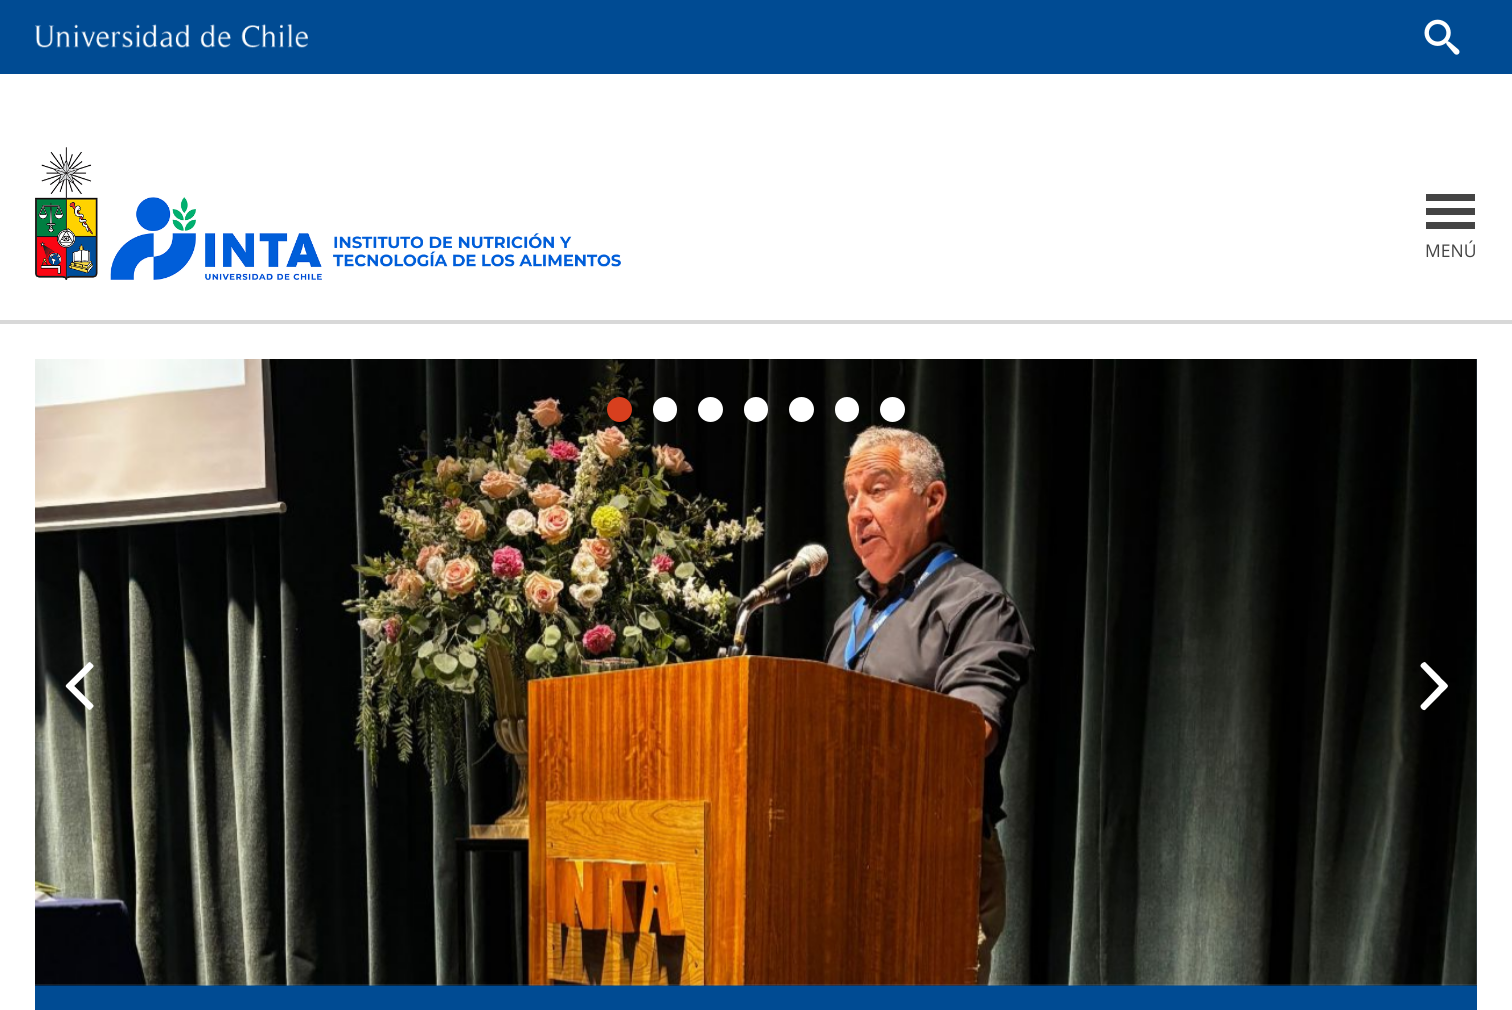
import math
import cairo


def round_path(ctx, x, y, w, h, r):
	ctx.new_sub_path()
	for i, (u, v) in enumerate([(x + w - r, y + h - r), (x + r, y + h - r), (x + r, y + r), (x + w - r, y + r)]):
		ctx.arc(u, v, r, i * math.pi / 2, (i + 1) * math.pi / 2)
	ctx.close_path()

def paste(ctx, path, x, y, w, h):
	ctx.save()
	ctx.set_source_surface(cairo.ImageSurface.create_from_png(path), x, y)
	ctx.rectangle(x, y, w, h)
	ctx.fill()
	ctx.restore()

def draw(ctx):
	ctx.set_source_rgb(1, 1, 1)
	ctx.paint()
	ctx.set_source_rgb(0, 0.294, 0.576)
	ctx.rectangle(0, 0, 1512, 74)
	ctx.fill()
	paste(ctx, 'media/1.png', 35, 24, 273, 24)
	paste(ctx, 'media/2.png', 1424, 19, 36, 36)
	paste(ctx, 'media/3.png', 35, 147, 586, 133)
	ctx.set_source_rgb(0.267, 0.267, 0.267)
	ctx.rectangle(1426, 194, 49, 7)
	ctx.rectangle(1426, 208, 49, 7)
	ctx.rectangle(1426, 222, 49, 7)
	ctx.fill()
	ctx.select_font_face('Open Sans')
	ctx.set_font_size(17.5)
	ctx.move_to(1425, 257)
	ctx.show_text('MENÚ')
	ctx.set_source_rgb(0.847, 0.847, 0.847)
	ctx.rectangle(0, 320, 1512, 4)
	ctx.fill()
	ctx.set_source_rgb(0, 0.294, 0.576)
	ctx.rectangle(35, 985, 1442, 25)
	ctx.fill()
	ctx.set_source_rgb(0.502, 0.647, 0.784)
	ctx.rectangle(35, 359, 1442, 626)
	ctx.fill()
	paste(ctx, 'media/4.png', 35, 359, 1442, 627)
	ctx.set_source_rgb(0.843, 0.247, 0.118)
	ctx.arc(619.5, 409.5, 12.5, 0, 2 * math.pi)
	ctx.fill()
	ctx.set_source_rgb(1, 1, 1)
	round_path(ctx, 653, 397, 24, 25, 12)
	ctx.fill()
	ctx.arc(710.5, 409.5, 12.5, 0, 2 * math.pi)
	ctx.fill()
	round_path(ctx, 744, 397, 24, 25, 12)
	ctx.fill()
	ctx.arc(801.5, 409.5, 12.5, 0, 2 * math.pi)
	ctx.fill()
	round_path(ctx, 835, 397, 24, 25, 12)
	ctx.fill()
	ctx.arc(892.5, 409.5, 12.5, 0, 2 * math.pi)
	ctx.fill()
	paste(ctx, 'media/5.png', 65, 662, 29, 48)
	ctx.new_path()
	ctx.move_to(1448, 686)
	ctx.curve_to(1448, 688, 1441, 693, 1440, 695)
	ctx.line_to(1425, 710)
	ctx.curve_to(1423, 711, 1419, 707, 1421, 705)
	ctx.line_to(1439, 686)
	ctx.line_to(1421, 667)
	ctx.curve_to(1419, 665, 1423, 662, 1425, 662)
	ctx.line_to(1440, 677)
	ctx.curve_to(1441, 679, 1448, 684, 1448, 686)
	ctx.close_path()
	ctx.fill()


surface = cairo.ImageSurface(cairo.FORMAT_RGB24, 1512, 1010)
ctx = cairo.Context(surface)
options = cairo.FontOptions()
options.set_hint_metrics(cairo.HINT_METRICS_OFF)
options.set_hint_style(cairo.HINT_STYLE_NONE)
ctx.set_font_options(options)
ctx.set_miter_limit(4)
draw(ctx)
surface.write_to_png('image.png')
